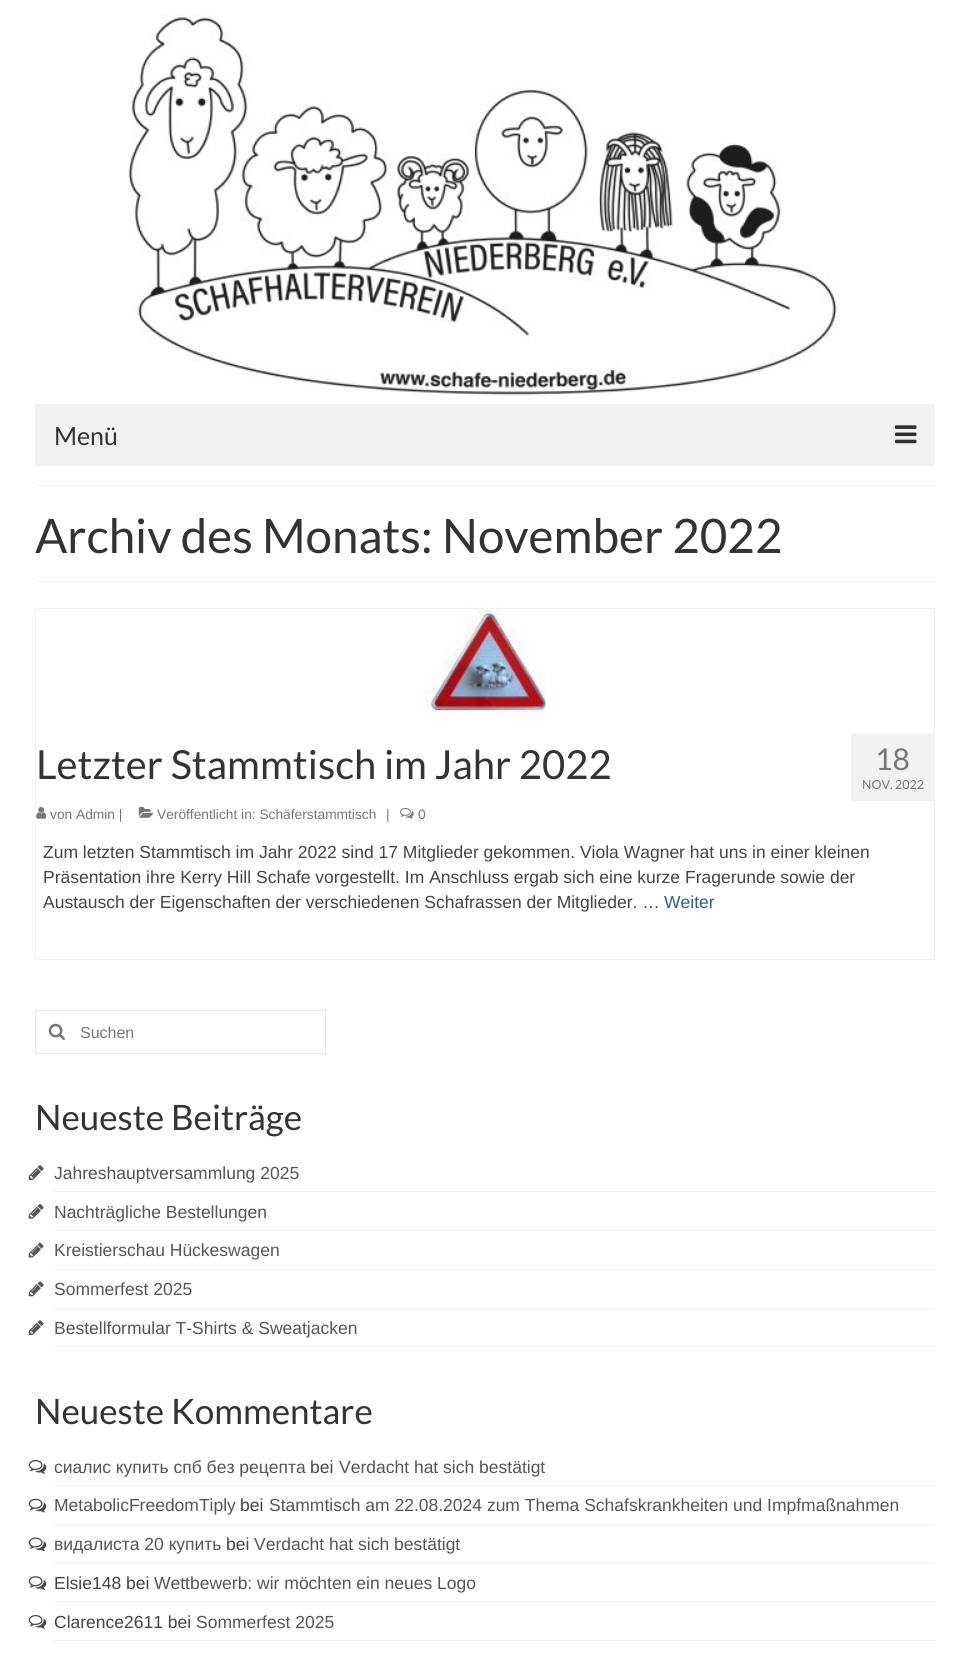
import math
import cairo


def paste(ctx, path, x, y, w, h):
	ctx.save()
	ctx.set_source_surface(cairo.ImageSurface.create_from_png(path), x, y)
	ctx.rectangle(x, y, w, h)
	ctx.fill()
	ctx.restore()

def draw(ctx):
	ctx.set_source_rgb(1, 1, 1)
	ctx.paint()
	paste(ctx, 'media/1.png', 128, 14, 712, 382)
	ctx.set_source_rgb(0.949, 0.949, 0.949)
	ctx.rectangle(35, 404, 900, 62)
	ctx.fill()
	ctx.select_font_face('Lato')
	ctx.set_font_size(25)
	ctx.set_source_rgb(0.2, 0.2, 0.2)
	ctx.move_to(54, 445)
	ctx.show_text('Menü')
	paste(ctx, 'media/2.png', 895, 425, 22, 19)
	ctx.set_source_rgb(0.949, 0.949, 0.949)
	ctx.rectangle(35, 485, 900, 1)
	ctx.fill()
	ctx.rectangle(35, 581, 900, 1)
	ctx.fill()
	ctx.set_font_size(47.5)
	ctx.set_source_rgb(0.2, 0.2, 0.2)
	ctx.move_to(35, 553)
	ctx.show_text('Archiv des Monats: November 2022')
	ctx.rectangle(35.5, 608.5, 899, 351)
	ctx.set_source_rgb(0.949, 0.949, 0.949)
	ctx.set_line_width(1)
	ctx.stroke()
	paste(ctx, 'media/3.png', 425, 609, 122, 105)
	ctx.set_font_size(40)
	ctx.set_source_rgb(0.2, 0.2, 0.2)
	ctx.move_to(36, 779)
	ctx.show_text('Letzter Stammtisch im Jahr 2022')
	paste(ctx, 'media/4.png', 36, 807, 11, 12)
	ctx.select_font_face('Liberation Sans')
	ctx.set_font_size(13.75)
	ctx.set_source_rgb(0.467, 0.467, 0.467)
	ctx.move_to(50, 819)
	ctx.show_text('von Admin |')
	paste(ctx, 'media/5.png', 138, 806, 16, 12)
	ctx.move_to(157, 819)
	ctx.show_text('Veröffentlicht in: Schäferstammtisch')
	ctx.move_to(386, 819)
	ctx.show_text('|')
	paste(ctx, 'media/6.png', 400, 807, 14, 12)
	ctx.move_to(418, 819)
	ctx.show_text('0')
	ctx.set_source_rgb(0.949, 0.949, 0.949)
	ctx.rectangle(851, 733, 83, 68)
	ctx.fill()
	ctx.select_font_face('Lato')
	ctx.set_font_size(30)
	ctx.set_source_rgb(0.467, 0.467, 0.467)
	ctx.move_to(875, 770)
	ctx.show_text('18')
	ctx.set_font_size(12.5)
	ctx.move_to(862, 789)
	ctx.show_text('NOV. 2022')
	ctx.select_font_face('Liberation Sans')
	ctx.set_font_size(17.5)
	ctx.set_source_rgb(0.267, 0.267, 0.267)
	for x, y, s in [
		(43, 858, 'Zum letzten Stammtisch im Jahr 2022 sind 17 Mitglieder gekommen. Viola Wagner hat uns in einer kleinen'),
		(43, 883, 'Präsentation ihre Kerry Hill Schafe vorgestellt. Im Anschluss ergab sich eine kurze Fragerunde sowie der'),
		(43, 908, 'Austausch der Eigenschaften der verschiedenen Schafrassen der Mitglieder. …'),
	]:
		ctx.move_to(x, y)
		ctx.show_text(s)
	ctx.set_source_rgb(0.176, 0.361, 0.533)
	ctx.move_to(664, 908)
	ctx.show_text('Weiter')
	ctx.rectangle(35.5, 1010.5, 290, 43)
	ctx.set_source_rgb(0.906, 0.906, 0.906)
	ctx.stroke()
	paste(ctx, 'media/7.png', 48, 1023, 17, 17)
	ctx.set_font_size(16)
	ctx.set_source_rgb(0.467, 0.467, 0.467)
	ctx.move_to(80, 1038)
	ctx.show_text('Suchen')
	ctx.select_font_face('Lato')
	ctx.set_font_size(35)
	ctx.set_source_rgb(0.2, 0.2, 0.2)
	ctx.move_to(35, 1130)
	ctx.show_text('Neueste Beiträge')
	ctx.set_source_rgb(0.949, 0.949, 0.949)
	ctx.rectangle(54, 1191, 881, 1)
	ctx.fill()
	paste(ctx, 'media/8.png', 28, 1165, 16, 15)
	ctx.select_font_face('Liberation Sans')
	ctx.set_font_size(17.5)
	ctx.set_source_rgb(0.333, 0.333, 0.333)
	ctx.move_to(54, 1179)
	ctx.show_text('Jahreshauptversammlung 2025')
	ctx.set_source_rgb(0.949, 0.949, 0.949)
	ctx.rectangle(54, 1230, 881, 1)
	ctx.fill()
	paste(ctx, 'media/9.png', 28, 1204, 16, 15)
	ctx.set_source_rgb(0.333, 0.333, 0.333)
	ctx.move_to(54, 1218)
	ctx.show_text('Nachträgliche Bestellungen')
	ctx.set_source_rgb(0.949, 0.949, 0.949)
	ctx.rectangle(54, 1269, 881, 1)
	ctx.fill()
	paste(ctx, 'media/10.png', 28, 1242, 16, 16)
	ctx.set_source_rgb(0.333, 0.333, 0.333)
	ctx.move_to(54, 1256)
	ctx.show_text('Kreistierschau Hückeswagen')
	ctx.set_source_rgb(0.949, 0.949, 0.949)
	ctx.rectangle(54, 1308, 881, 1)
	ctx.fill()
	paste(ctx, 'media/11.png', 28, 1281, 16, 16)
	ctx.set_source_rgb(0.333, 0.333, 0.333)
	ctx.move_to(54, 1295)
	ctx.show_text('Sommerfest 2025')
	ctx.set_source_rgb(0.949, 0.949, 0.949)
	ctx.rectangle(54, 1346, 881, 1)
	ctx.fill()
	paste(ctx, 'media/8.png', 28, 1320, 16, 15)
	ctx.set_source_rgb(0.333, 0.333, 0.333)
	ctx.move_to(54, 1334)
	ctx.show_text('Bestellformular T-Shirts & Sweatjacken')
	ctx.select_font_face('Lato')
	ctx.set_font_size(35)
	ctx.set_source_rgb(0.2, 0.2, 0.2)
	ctx.move_to(35, 1424)
	ctx.show_text('Neueste Kommentare')
	ctx.set_source_rgb(0.949, 0.949, 0.949)
	ctx.rectangle(54, 1485, 881, 1)
	ctx.fill()
	paste(ctx, 'media/12.png', 28, 1460, 19, 14)
	ctx.select_font_face('Liberation Sans')
	ctx.set_font_size(17.5)
	ctx.set_source_rgb(0.333, 0.333, 0.333)
	ctx.move_to(54, 1473)
	ctx.show_text('сиалис купить спб без рецепта')
	ctx.set_source_rgb(0.267, 0.267, 0.267)
	ctx.move_to(310, 1473)
	ctx.show_text('bei')
	ctx.set_source_rgb(0.333, 0.333, 0.333)
	ctx.move_to(339, 1473)
	ctx.show_text('Verdacht hat sich bestätigt')
	ctx.set_source_rgb(0.949, 0.949, 0.949)
	ctx.rectangle(54, 1524, 881, 1)
	ctx.fill()
	paste(ctx, 'media/13.png', 28, 1498, 19, 15)
	ctx.set_source_rgb(0.333, 0.333, 0.333)
	ctx.move_to(54, 1511)
	ctx.show_text('MetabolicFreedomTiply')
	ctx.set_source_rgb(0.267, 0.267, 0.267)
	ctx.move_to(240, 1511)
	ctx.show_text('bei')
	ctx.set_source_rgb(0.333, 0.333, 0.333)
	ctx.move_to(269, 1511)
	ctx.show_text('Stammtisch am 22.08.2024 zum Thema Schafskrankheiten und Impfmaßnahmen')
	ctx.set_source_rgb(0.949, 0.949, 0.949)
	ctx.rectangle(54, 1563, 881, 1)
	ctx.fill()
	paste(ctx, 'media/14.png', 28, 1537, 19, 15)
	ctx.set_source_rgb(0.333, 0.333, 0.333)
	ctx.move_to(54, 1550)
	ctx.show_text('видалиста 20 купить')
	ctx.set_source_rgb(0.267, 0.267, 0.267)
	ctx.move_to(226, 1550)
	ctx.show_text('bei')
	ctx.set_source_rgb(0.333, 0.333, 0.333)
	ctx.move_to(254, 1550)
	ctx.show_text('Verdacht hat sich bestätigt')
	ctx.set_source_rgb(0.949, 0.949, 0.949)
	ctx.rectangle(54, 1601, 881, 1)
	ctx.fill()
	paste(ctx, 'media/15.png', 28, 1576, 19, 14)
	ctx.set_source_rgb(0.267, 0.267, 0.267)
	ctx.move_to(54, 1589)
	ctx.show_text('Elsie148 bei')
	ctx.set_source_rgb(0.333, 0.333, 0.333)
	ctx.move_to(154, 1589)
	ctx.show_text('Wettbewerb: wir möchten ein neues Logo')
	ctx.set_source_rgb(0.949, 0.949, 0.949)
	ctx.rectangle(54, 1640, 881, 1)
	ctx.fill()
	paste(ctx, 'media/12.png', 28, 1615, 19, 14)
	ctx.set_source_rgb(0.267, 0.267, 0.267)
	ctx.move_to(54, 1628)
	ctx.show_text('Clarence2611 bei')
	ctx.set_source_rgb(0.333, 0.333, 0.333)
	ctx.move_to(196, 1628)
	ctx.show_text('Sommerfest 2025')


surface = cairo.ImageSurface(cairo.FORMAT_RGB24, 969, 1657)
ctx = cairo.Context(surface)
options = cairo.FontOptions()
options.set_hint_metrics(cairo.HINT_METRICS_OFF)
options.set_hint_style(cairo.HINT_STYLE_NONE)
ctx.set_font_options(options)
ctx.set_miter_limit(4)
draw(ctx)
surface.write_to_png('image.png')
